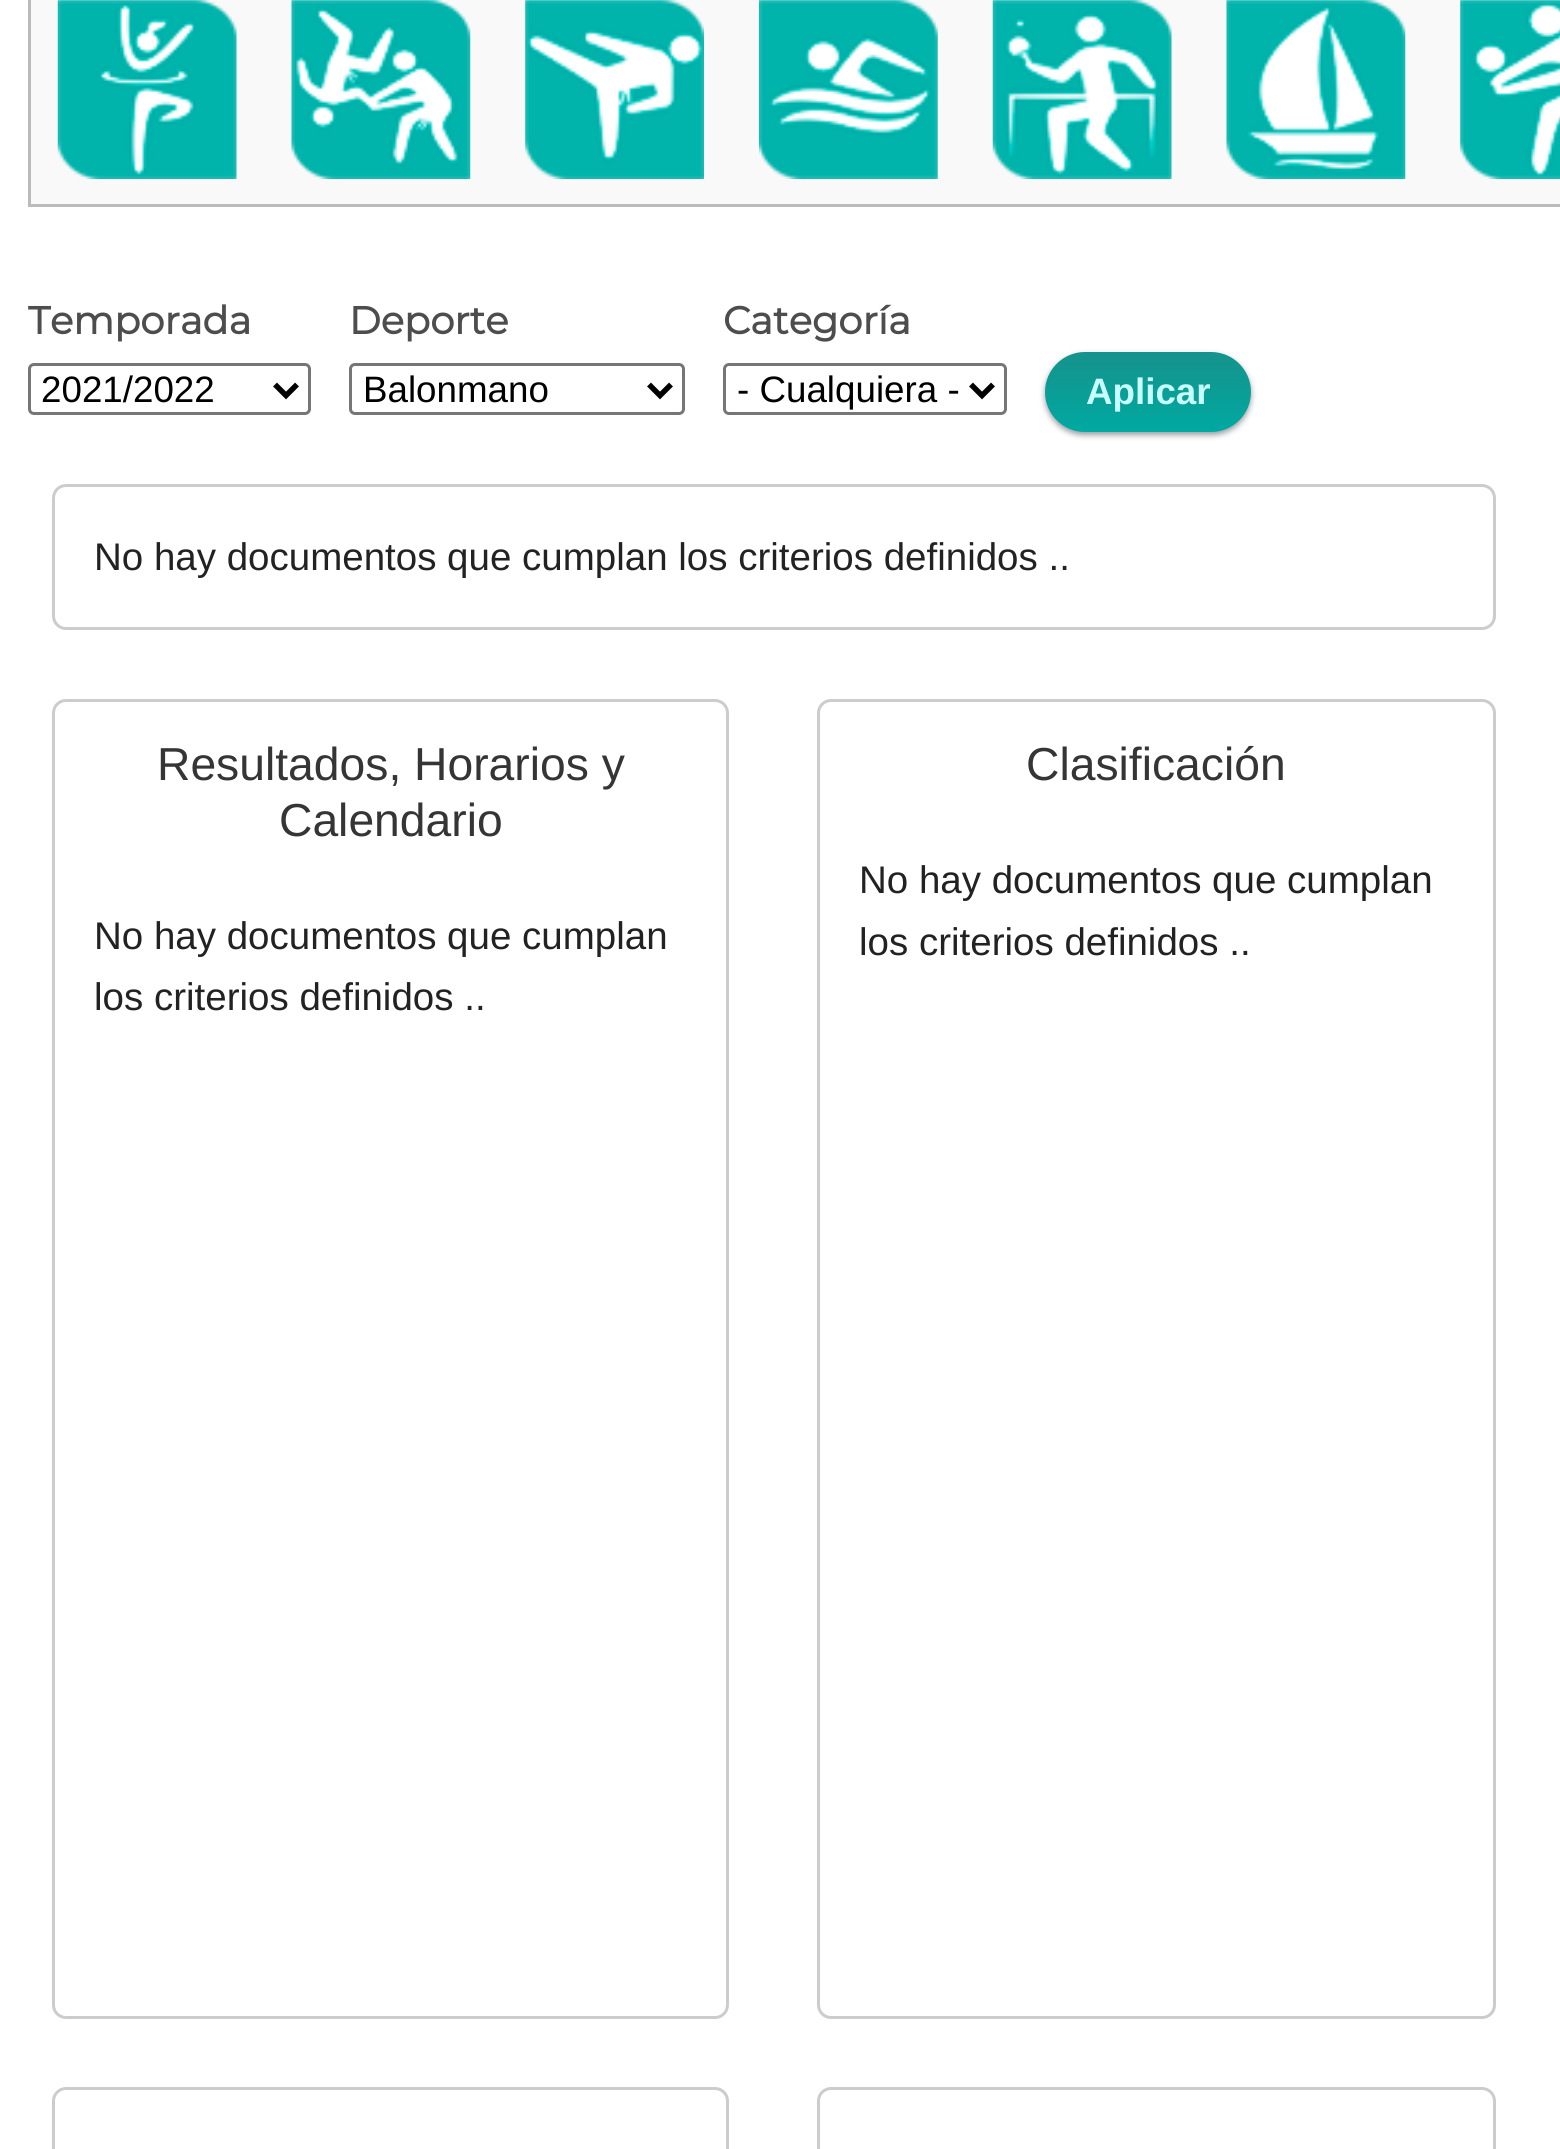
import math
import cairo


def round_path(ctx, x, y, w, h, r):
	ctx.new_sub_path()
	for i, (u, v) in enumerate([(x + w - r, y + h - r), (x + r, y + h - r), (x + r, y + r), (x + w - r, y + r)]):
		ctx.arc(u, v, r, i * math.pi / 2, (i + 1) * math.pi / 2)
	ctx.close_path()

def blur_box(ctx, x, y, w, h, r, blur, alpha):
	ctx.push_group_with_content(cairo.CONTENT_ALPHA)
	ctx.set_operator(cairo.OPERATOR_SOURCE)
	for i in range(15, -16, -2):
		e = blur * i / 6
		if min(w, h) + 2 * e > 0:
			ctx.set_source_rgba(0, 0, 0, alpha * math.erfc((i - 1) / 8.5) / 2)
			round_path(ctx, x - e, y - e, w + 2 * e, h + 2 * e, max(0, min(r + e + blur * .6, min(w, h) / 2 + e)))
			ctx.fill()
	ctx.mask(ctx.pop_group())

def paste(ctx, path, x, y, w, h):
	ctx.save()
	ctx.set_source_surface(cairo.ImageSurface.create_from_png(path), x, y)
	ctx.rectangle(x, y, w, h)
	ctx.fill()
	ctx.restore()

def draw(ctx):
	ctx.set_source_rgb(1, 1, 1)
	ctx.paint()
	ctx.set_source_rgb(0.733, 0.733, 0.733)
	ctx.rectangle(28, 204, 1532, 3)
	ctx.rectangle(28, 0, 3, 206)
	ctx.fill()
	ctx.set_source_rgb(0.976, 0.976, 0.976)
	ctx.rectangle(31, 0, 1529, 204)
	ctx.fill()
	paste(ctx, 'media/1.png', 57, 0, 180, 179)
	paste(ctx, 'media/2.png', 291, 0, 180, 179)
	paste(ctx, 'media/3.png', 525, 0, 179, 179)
	paste(ctx, 'media/4.png', 759, 0, 179, 179)
	paste(ctx, 'media/5.png', 992, 0, 180, 179)
	paste(ctx, 'media/6.png', 1226, 0, 180, 179)
	paste(ctx, 'media/7.png', 1460, 0, 100, 179)
	ctx.select_font_face('Montserrat', cairo.FONT_SLANT_NORMAL, cairo.FONT_WEIGHT_BOLD)
	ctx.set_font_size(38.5)
	ctx.set_source_rgb(0.302, 0.302, 0.302)
	ctx.move_to(28, 334)
	ctx.show_text('Temporada')
	round_path(ctx, 29.5, 364.5, 280, 49, 4.5)
	ctx.set_source_rgb(0.463, 0.463, 0.463)
	ctx.set_line_width(3)
	ctx.stroke()
	ctx.new_path()
	ctx.move_to(275, 384.5)
	ctx.line_to(286, 395.5)
	ctx.line_to(297, 384.5)
	ctx.set_source_rgb(0, 0, 0)
	ctx.set_line_width(5.5)
	ctx.stroke()
	ctx.select_font_face('Liberation Sans')
	ctx.set_font_size(36.75)
	ctx.move_to(41, 402)
	ctx.show_text('2021/2022')
	ctx.select_font_face('Montserrat', cairo.FONT_SLANT_NORMAL, cairo.FONT_WEIGHT_BOLD)
	ctx.set_font_size(38.5)
	ctx.set_source_rgb(0.302, 0.302, 0.302)
	ctx.move_to(349, 334)
	ctx.show_text('Deporte')
	round_path(ctx, 350.5, 364.5, 333, 49, 4.5)
	ctx.set_source_rgb(0.463, 0.463, 0.463)
	ctx.set_line_width(3)
	ctx.stroke()
	ctx.new_path()
	ctx.move_to(649, 384.5)
	ctx.line_to(660, 395.5)
	ctx.line_to(671, 384.5)
	ctx.set_source_rgb(0, 0, 0)
	ctx.set_line_width(5.5)
	ctx.stroke()
	ctx.select_font_face('Liberation Sans')
	ctx.set_font_size(36.75)
	ctx.move_to(363, 402)
	ctx.show_text('Balonmano')
	ctx.select_font_face('Montserrat', cairo.FONT_SLANT_NORMAL, cairo.FONT_WEIGHT_BOLD)
	ctx.set_font_size(38.5)
	ctx.set_source_rgb(0.302, 0.302, 0.302)
	ctx.move_to(723, 334)
	ctx.show_text('Categoría')
	round_path(ctx, 724.5, 364.5, 281, 49, 4.5)
	ctx.set_source_rgb(0.463, 0.463, 0.463)
	ctx.set_line_width(3)
	ctx.stroke()
	ctx.new_path()
	ctx.move_to(971, 384.5)
	ctx.line_to(982, 395.5)
	ctx.line_to(993, 384.5)
	ctx.set_source_rgb(0, 0, 0)
	ctx.set_line_width(5.5)
	ctx.stroke()
	ctx.select_font_face('Liberation Sans')
	ctx.set_font_size(36.75)
	ctx.move_to(737, 402)
	ctx.show_text('- Cualquiera -')
	ctx.set_source_rgb(0.576, 0.616, 0.635)
	blur_box(ctx, 1045, 355, 206, 80, 40, 3, 1)
	gradient = cairo.LinearGradient(1148, 352, 1148, 432)
	gradient.add_color_stop_rgba(0, 0.086, 0.573, 0.549, 1)
	gradient.add_color_stop_rgba(1, 0, 0.663, 0.631, 1)
	ctx.set_source(gradient)
	round_path(ctx, 1045, 352, 206, 80, 40)
	ctx.fill()
	ctx.select_font_face('Liberation Sans', cairo.FONT_SLANT_NORMAL, cairo.FONT_WEIGHT_BOLD)
	ctx.set_source_rgb(0.784, 1, 1)
	ctx.move_to(1086, 404)
	ctx.show_text('Aplicar')
	round_path(ctx, 53.5, 485.5, 1441, 143, 12.5)
	ctx.set_source_rgb(0.8, 0.8, 0.8)
	ctx.set_line_width(3)
	ctx.stroke()
	ctx.select_font_face('Liberation Sans')
	ctx.set_font_size(38.5)
	ctx.set_source_rgb(0.133, 0.133, 0.133)
	ctx.move_to(94, 570)
	ctx.show_text('No hay documentos que cumplan los criterios definidos ..')
	round_path(ctx, 53.5, 700.5, 674, 1317, 12.5)
	ctx.set_source_rgb(0.8, 0.8, 0.8)
	ctx.stroke()
	ctx.set_font_size(46.25)
	ctx.set_source_rgb(0.208, 0.208, 0.208)
	ctx.move_to(157, 780)
	ctx.show_text('Resultados, Horarios y')
	ctx.move_to(279, 836)
	ctx.show_text('Calendario')
	ctx.set_font_size(38.5)
	ctx.set_source_rgb(0.133, 0.133, 0.133)
	ctx.move_to(94, 949)
	ctx.show_text('No hay documentos que cumplan')
	ctx.move_to(94, 1010)
	ctx.show_text('los criterios definidos ..')
	round_path(ctx, 818.5, 700.5, 676, 1317, 12.5)
	ctx.set_source_rgb(0.8, 0.8, 0.8)
	ctx.stroke()
	ctx.set_font_size(46.25)
	ctx.set_source_rgb(0.208, 0.208, 0.208)
	ctx.move_to(1026, 780)
	ctx.show_text('Clasificación')
	ctx.set_font_size(38.5)
	ctx.set_source_rgb(0.133, 0.133, 0.133)
	ctx.move_to(859, 893)
	ctx.show_text('No hay documentos que cumplan')
	ctx.move_to(859, 955)
	ctx.show_text('los criterios definidos ..')
	round_path(ctx, 53.5, 2088.5, 674, 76, 12.5)
	ctx.set_source_rgb(0.8, 0.8, 0.8)
	ctx.stroke()
	round_path(ctx, 818.5, 2088.5, 676, 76, 12.5)
	ctx.stroke()


surface = cairo.ImageSurface(cairo.FORMAT_RGB24, 1560, 2149)
ctx = cairo.Context(surface)
options = cairo.FontOptions()
options.set_hint_metrics(cairo.HINT_METRICS_OFF)
options.set_hint_style(cairo.HINT_STYLE_NONE)
ctx.set_font_options(options)
ctx.set_miter_limit(4)
draw(ctx)
surface.write_to_png('image.png')
